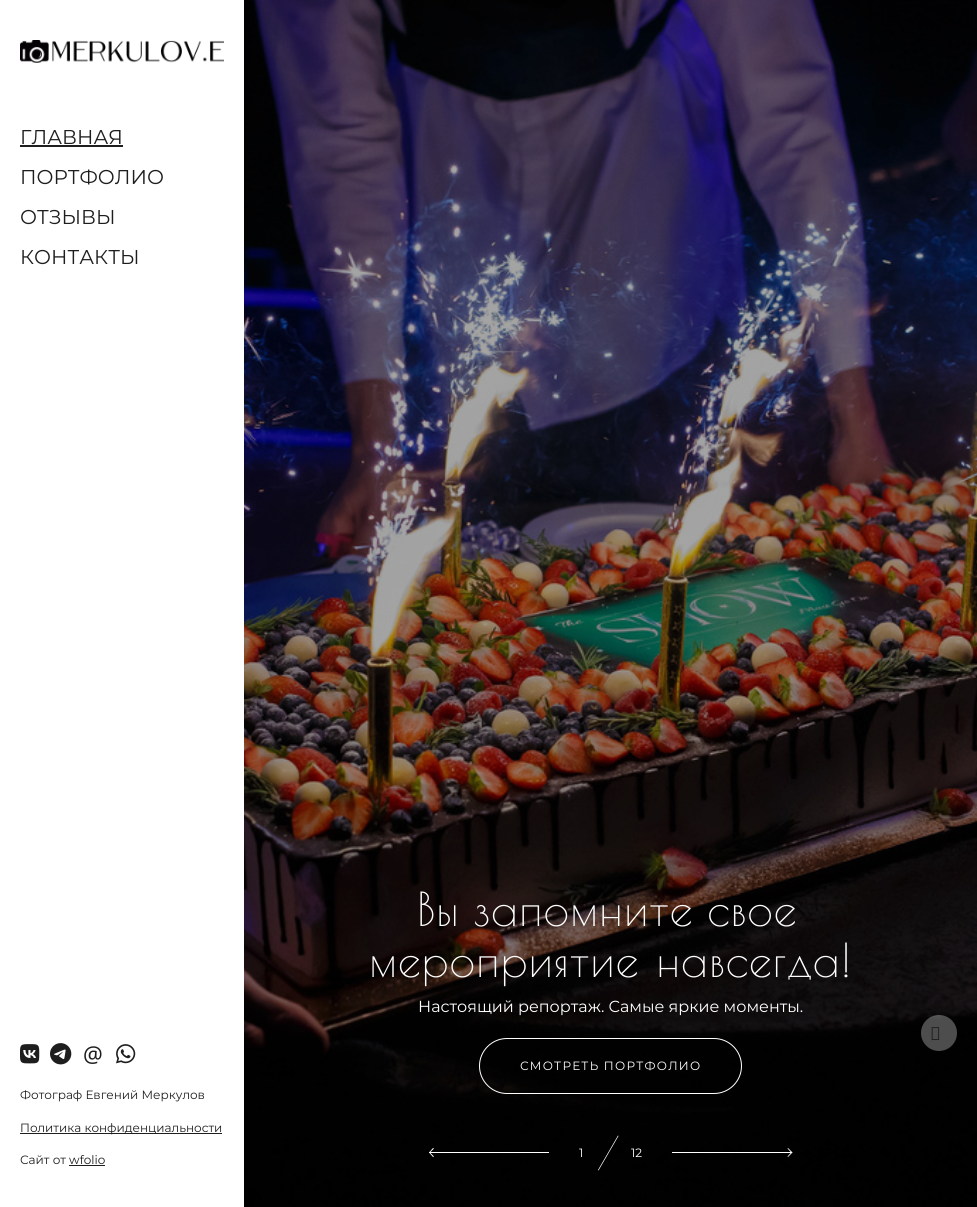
import math
import cairo


def write_spaced(ctx, x, y, s, letter, word):
	ctx.move_to(x, y)
	for ch in s:
		ctx.show_text(ch)
		ctx.rel_move_to(letter + word * (ch == ' '), 0)

def round_path(ctx, x, y, w, h, r):
	ctx.new_sub_path()
	for i, (u, v) in enumerate([(x + w - r, y + h - r), (x + r, y + h - r), (x + r, y + r), (x + w - r, y + r)]):
		ctx.arc(u, v, r, i * math.pi / 2, (i + 1) * math.pi / 2)
	ctx.close_path()

def paste(ctx, path, x, y, w, h):
	ctx.save()
	ctx.set_source_surface(cairo.ImageSurface.create_from_png(path), x, y)
	ctx.rectangle(x, y, w, h)
	ctx.fill()
	ctx.restore()

def draw(ctx):
	ctx.set_source_rgb(1, 1, 1)
	ctx.paint()
	paste(ctx, 'media/1.png', 20, 40, 204, 23)
	ctx.select_font_face('Montserrat')
	ctx.set_font_size(20)
	ctx.set_source_rgb(0.118, 0.118, 0.118)
	ctx.move_to(20, 144)
	ctx.show_text('ГЛАВНАЯ')
	ctx.rectangle(20, 145, 103, 2)
	ctx.fill()
	for x, y, s in [
		(20, 184, 'ПОРТФОЛИО'),
		(20, 224, 'ОТЗЫВЫ'),
		(20, 264, 'КОНТАКТЫ'),
	]:
		ctx.move_to(x, y)
		ctx.show_text(s)
	paste(ctx, 'media/2.png', 20, 1044, 20, 20)
	paste(ctx, 'media/3.png', 50, 1043, 22, 22)
	ctx.select_font_face('Noto Sans')
	ctx.set_font_size(22)
	ctx.move_to(83, 1062)
	ctx.show_text('@')
	paste(ctx, 'media/4.png', 116, 1044, 20, 20)
	ctx.select_font_face('Montserrat')
	ctx.set_font_size(12)
	ctx.move_to(20, 1099)
	ctx.show_text('Фотограф Евгений Меркулов')
	ctx.rectangle(20, 1133, 202, 1)
	ctx.fill()
	ctx.move_to(20, 1132)
	ctx.show_text('Политика конфиденциальности')
	ctx.move_to(20, 1164)
	ctx.show_text('Сайт от wfolio')
	ctx.rectangle(69, 1165, 36, 1)
	ctx.fill()
	paste(ctx, 'media/5.png', 244, 0, 733, 1207)
	ctx.select_font_face('Poiret One')
	ctx.set_font_size(46)
	ctx.set_source_rgb(1, 1, 1)
	write_spaced(ctx, 417, 926, 'Вы запомните свое', 0.9, -3)
	write_spaced(ctx, 369, 977, 'мероприятие навсегда!', 0.9, 0)
	ctx.select_font_face('Montserrat')
	ctx.set_font_size(16)
	ctx.move_to(418, 1012)
	ctx.show_text('Настоящий репортаж. Самые яркие моменты.')
	round_path(ctx, 479.5, 1038.5, 262, 55, 27.5)
	ctx.set_line_width(1)
	ctx.stroke()
	ctx.set_font_size(12)
	write_spaced(ctx, 520, 1070, 'СМОТРЕТЬ ПОРТФОЛИО', 1.25, 0)
	ctx.rectangle(429, 1152, 120, 1)
	ctx.fill()
	ctx.new_path()
	ctx.move_to(429.5, 1152)
	ctx.line_to(434, 1156.5)
	ctx.line_to(433, 1157)
	ctx.line_to(429, 1152.5)
	ctx.close_path()
	ctx.fill()
	ctx.new_path()
	ctx.move_to(429, 1152.5)
	ctx.line_to(433, 1148)
	ctx.line_to(434, 1148.5)
	ctx.line_to(429.5, 1153)
	ctx.close_path()
	ctx.fill()
	ctx.move_to(579, 1157)
	ctx.show_text('1')
	ctx.new_path()
	ctx.move_to(618, 1135.5)
	ctx.line_to(618.5, 1136)
	ctx.line_to(598.5, 1170.5)
	ctx.line_to(598, 1170)
	ctx.close_path()
	ctx.fill()
	ctx.move_to(631, 1157)
	ctx.show_text('12')
	ctx.rectangle(672, 1152, 120, 1)
	ctx.fill()
	ctx.new_path()
	ctx.move_to(787.5, 1156.5)
	ctx.line_to(791.5, 1152)
	ctx.line_to(792.5, 1152.5)
	ctx.line_to(788, 1157)
	ctx.close_path()
	ctx.fill()
	ctx.new_path()
	ctx.move_to(788, 1148)
	ctx.line_to(792.5, 1152.5)
	ctx.line_to(791.5, 1153)
	ctx.line_to(787.5, 1148.5)
	ctx.close_path()
	ctx.fill()
	ctx.set_source_rgba(1, 1, 1, 0.3)
	ctx.arc(939, 1033, 18, 0, 2 * math.pi)
	ctx.fill()
	paste(ctx, 'media/6.png', 931, 1027, 9, 13)


surface = cairo.ImageSurface(cairo.FORMAT_RGB24, 977, 1207)
ctx = cairo.Context(surface)
options = cairo.FontOptions()
options.set_hint_metrics(cairo.HINT_METRICS_OFF)
options.set_hint_style(cairo.HINT_STYLE_NONE)
ctx.set_font_options(options)
ctx.set_miter_limit(4)
draw(ctx)
surface.write_to_png('image.png')
